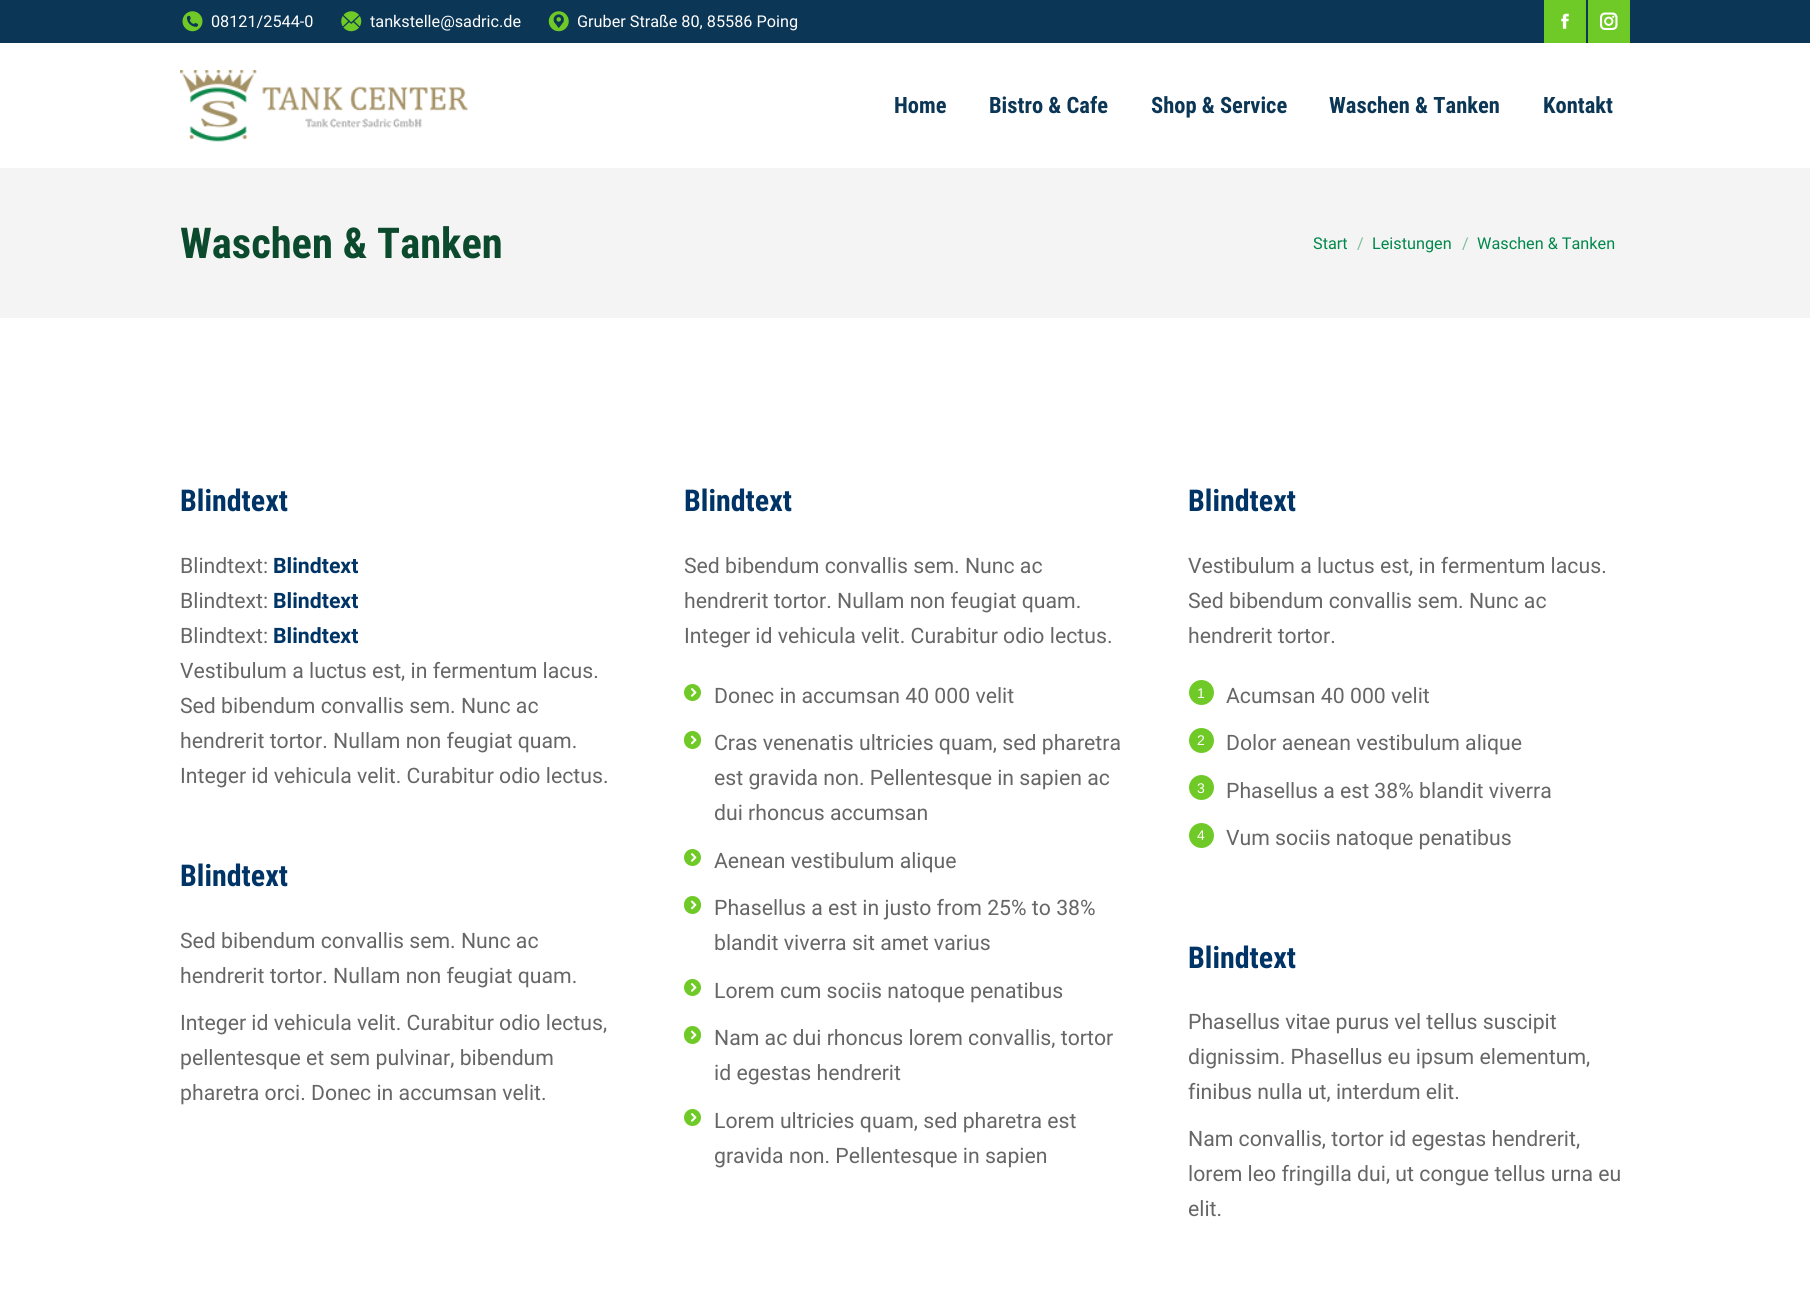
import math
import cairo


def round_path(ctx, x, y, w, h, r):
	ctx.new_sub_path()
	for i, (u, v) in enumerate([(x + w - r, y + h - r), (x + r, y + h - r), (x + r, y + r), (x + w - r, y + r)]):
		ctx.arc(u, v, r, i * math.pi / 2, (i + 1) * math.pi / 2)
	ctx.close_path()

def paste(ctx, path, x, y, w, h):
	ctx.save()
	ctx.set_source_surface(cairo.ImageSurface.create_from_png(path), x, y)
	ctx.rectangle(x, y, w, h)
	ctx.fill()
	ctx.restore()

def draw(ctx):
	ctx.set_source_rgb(1, 1, 1)
	ctx.paint()
	ctx.set_source_rgb(0.043, 0.212, 0.333)
	ctx.rectangle(0, 0, 1810, 43)
	ctx.fill()
	paste(ctx, 'media/1.png', 182, 11, 21, 21)
	ctx.select_font_face('Roboto')
	ctx.set_font_size(16.25)
	ctx.set_source_rgb(1, 1, 1)
	ctx.move_to(211, 27)
	ctx.show_text('08121/2544-0')
	paste(ctx, 'media/2.png', 341, 11, 21, 21)
	ctx.move_to(370, 27)
	ctx.show_text('tankstelle@sadric.de')
	paste(ctx, 'media/3.png', 548, 11, 21, 21)
	ctx.move_to(577, 27)
	ctx.show_text('Gruber Straße 80, 85586 Poing')
	ctx.set_source_rgb(0.435, 0.788, 0.149)
	ctx.rectangle(1544, 0, 42, 43)
	ctx.fill()
	paste(ctx, 'media/4.png', 1561, 13, 8, 16)
	ctx.rectangle(1588, 0, 42, 43)
	ctx.fill()
	paste(ctx, 'media/5.png', 1600, 12, 18, 18)
	paste(ctx, 'media/6.png', 180, 70, 288, 72)
	ctx.select_font_face('Roboto Condensed', cairo.FONT_SLANT_NORMAL, cairo.FONT_WEIGHT_BOLD)
	ctx.set_font_size(22.5)
	ctx.set_source_rgb(0.043, 0.212, 0.333)
	for x, y, s in [
		(894, 113, 'Home'),
		(989, 113, 'Bistro & Cafe'),
		(1151, 113, 'Shop & Service'),
		(1329, 113, 'Waschen & Tanken'),
		(1543, 113, 'Kontakt'),
	]:
		ctx.move_to(x, y)
		ctx.show_text(s)
	ctx.set_source_rgb(0.957, 0.957, 0.957)
	ctx.rectangle(0, 168, 1810, 150)
	ctx.fill()
	ctx.set_font_size(42.5)
	ctx.set_source_rgb(0.043, 0.29, 0.173)
	ctx.move_to(180, 258)
	ctx.show_text('Waschen & Tanken')
	ctx.select_font_face('Roboto')
	ctx.set_font_size(16.25)
	ctx.set_source_rgb(0, 0.533, 0.29)
	ctx.move_to(1313, 249)
	ctx.show_text('Start')
	ctx.set_source_rgb(0.478, 0.745, 0.624)
	ctx.move_to(1357, 249)
	ctx.show_text('/')
	ctx.set_source_rgb(0, 0.533, 0.29)
	ctx.move_to(1372, 249)
	ctx.show_text('Leistungen')
	ctx.set_source_rgb(0.478, 0.745, 0.624)
	ctx.move_to(1462, 249)
	ctx.show_text('/')
	ctx.set_source_rgb(0, 0.533, 0.29)
	ctx.move_to(1477, 249)
	ctx.show_text('Waschen & Tanken')
	ctx.select_font_face('Roboto Condensed', cairo.FONT_SLANT_NORMAL, cairo.FONT_WEIGHT_BOLD)
	ctx.set_font_size(30)
	ctx.set_source_rgb(0, 0.204, 0.4)
	ctx.move_to(180, 511)
	ctx.show_text('Blindtext')
	ctx.select_font_face('Roboto')
	ctx.set_font_size(21.25)
	ctx.set_source_rgb(0.4, 0.4, 0.4)
	ctx.move_to(180, 573)
	ctx.show_text('Blindtext:')
	ctx.select_font_face('Roboto', cairo.FONT_SLANT_NORMAL, cairo.FONT_WEIGHT_BOLD)
	ctx.set_source_rgb(0, 0.204, 0.4)
	ctx.move_to(273, 573)
	ctx.show_text('Blindtext')
	ctx.select_font_face('Roboto')
	ctx.set_source_rgb(0.4, 0.4, 0.4)
	ctx.move_to(180, 608)
	ctx.show_text('Blindtext:')
	ctx.select_font_face('Roboto', cairo.FONT_SLANT_NORMAL, cairo.FONT_WEIGHT_BOLD)
	ctx.set_source_rgb(0, 0.204, 0.4)
	ctx.move_to(273, 608)
	ctx.show_text('Blindtext')
	ctx.select_font_face('Roboto')
	ctx.set_source_rgb(0.4, 0.4, 0.4)
	ctx.move_to(180, 643)
	ctx.show_text('Blindtext:')
	ctx.select_font_face('Roboto', cairo.FONT_SLANT_NORMAL, cairo.FONT_WEIGHT_BOLD)
	ctx.set_source_rgb(0, 0.204, 0.4)
	ctx.move_to(273, 643)
	ctx.show_text('Blindtext')
	ctx.select_font_face('Roboto')
	ctx.set_source_rgb(0.4, 0.4, 0.4)
	for x, y, s in [
		(180, 678, 'Vestibulum a luctus est, in fermentum lacus.'),
		(180, 713, 'Sed bibendum convallis sem. Nunc ac'),
		(180, 748, 'hendrerit tortor. Nullam non feugiat quam.'),
		(180, 783, 'Integer id vehicula velit. Curabitur odio lectus.'),
	]:
		ctx.move_to(x, y)
		ctx.show_text(s)
	ctx.select_font_face('Roboto Condensed', cairo.FONT_SLANT_NORMAL, cairo.FONT_WEIGHT_BOLD)
	ctx.set_font_size(30)
	ctx.set_source_rgb(0, 0.204, 0.4)
	ctx.move_to(180, 886)
	ctx.show_text('Blindtext')
	ctx.select_font_face('Roboto')
	ctx.set_font_size(21.25)
	ctx.set_source_rgb(0.4, 0.4, 0.4)
	for x, y, s in [
		(180, 948, 'Sed bibendum convallis sem. Nunc ac'),
		(180, 983, 'hendrerit tortor. Nullam non feugiat quam.'),
		(180, 1030, 'Integer id vehicula velit. Curabitur odio lectus,'),
		(180, 1065, 'pellentesque et sem pulvinar, bibendum'),
		(180, 1100, 'pharetra orci. Donec in accumsan velit.'),
	]:
		ctx.move_to(x, y)
		ctx.show_text(s)
	ctx.select_font_face('Roboto Condensed', cairo.FONT_SLANT_NORMAL, cairo.FONT_WEIGHT_BOLD)
	ctx.set_font_size(30)
	ctx.set_source_rgb(0, 0.204, 0.4)
	ctx.move_to(684, 511)
	ctx.show_text('Blindtext')
	ctx.select_font_face('Roboto')
	ctx.set_font_size(21.25)
	ctx.set_source_rgb(0.4, 0.4, 0.4)
	for x, y, s in [
		(684, 573, 'Sed bibendum convallis sem. Nunc ac'),
		(684, 608, 'hendrerit tortor. Nullam non feugiat quam.'),
		(684, 643, 'Integer id vehicula velit. Curabitur odio lectus.'),
	]:
		ctx.move_to(x, y)
		ctx.show_text(s)
	ctx.set_source_rgb(0.435, 0.788, 0.149)
	ctx.new_path()
	ctx.arc(692.5, 692.5, 8.5, 0, 2 * math.pi)
	ctx.fill()
	ctx.set_source_rgb(0.4, 0.4, 0.4)
	ctx.move_to(714, 703)
	ctx.show_text('Donec in accumsan 40 000 velit')
	paste(ctx, 'media/7.png', 690, 688, 7, 9)
	ctx.set_source_rgb(0.435, 0.788, 0.149)
	round_path(ctx, 684, 731, 17, 18, 8.5)
	ctx.fill()
	ctx.set_source_rgb(0.4, 0.4, 0.4)
	ctx.move_to(714, 750)
	ctx.show_text('Cras venenatis ultricies quam, sed pharetra')
	paste(ctx, 'media/8.png', 690, 735, 7, 10)
	ctx.move_to(714, 785)
	ctx.show_text('est gravida non. Pellentesque in sapien ac')
	ctx.move_to(714, 820)
	ctx.show_text('dui rhoncus accumsan')
	ctx.set_source_rgb(0.435, 0.788, 0.149)
	ctx.new_path()
	ctx.arc(692.5, 857.5, 8.5, 0, 2 * math.pi)
	ctx.fill()
	ctx.set_source_rgb(0.4, 0.4, 0.4)
	ctx.move_to(714, 868)
	ctx.show_text('Aenean vestibulum alique')
	paste(ctx, 'media/7.png', 690, 853, 7, 9)
	ctx.set_source_rgb(0.435, 0.788, 0.149)
	round_path(ctx, 684, 896, 17, 18, 8.5)
	ctx.fill()
	ctx.set_source_rgb(0.4, 0.4, 0.4)
	ctx.move_to(714, 915)
	ctx.show_text('Phasellus a est in justo from 25% to 38%')
	paste(ctx, 'media/8.png', 690, 900, 7, 10)
	ctx.move_to(714, 950)
	ctx.show_text('blandit viverra sit amet varius')
	ctx.set_source_rgb(0.435, 0.788, 0.149)
	ctx.new_path()
	ctx.arc(692.5, 987.5, 8.5, 0, 2 * math.pi)
	ctx.fill()
	ctx.set_source_rgb(0.4, 0.4, 0.4)
	ctx.move_to(714, 998)
	ctx.show_text('Lorem cum sociis natoque penatibus')
	paste(ctx, 'media/7.png', 690, 983, 7, 9)
	ctx.set_source_rgb(0.435, 0.788, 0.149)
	round_path(ctx, 684, 1026, 17, 18, 8.5)
	ctx.fill()
	ctx.set_source_rgb(0.4, 0.4, 0.4)
	ctx.move_to(714, 1045)
	ctx.show_text('Nam ac dui rhoncus lorem convallis, tortor')
	paste(ctx, 'media/8.png', 690, 1030, 7, 10)
	ctx.move_to(714, 1080)
	ctx.show_text('id egestas hendrerit')
	ctx.set_source_rgb(0.435, 0.788, 0.149)
	ctx.new_path()
	ctx.arc(692.5, 1117.5, 8.5, 0, 2 * math.pi)
	ctx.fill()
	ctx.set_source_rgb(0.4, 0.4, 0.4)
	ctx.move_to(714, 1128)
	ctx.show_text('Lorem ultricies quam, sed pharetra est')
	paste(ctx, 'media/7.png', 690, 1113, 7, 9)
	ctx.move_to(714, 1163)
	ctx.show_text('gravida non. Pellentesque in sapien')
	ctx.select_font_face('Roboto Condensed', cairo.FONT_SLANT_NORMAL, cairo.FONT_WEIGHT_BOLD)
	ctx.set_font_size(30)
	ctx.set_source_rgb(0, 0.204, 0.4)
	ctx.move_to(1188, 511)
	ctx.show_text('Blindtext')
	ctx.select_font_face('Roboto')
	ctx.set_font_size(21.25)
	ctx.set_source_rgb(0.4, 0.4, 0.4)
	for x, y, s in [
		(1188, 573, 'Vestibulum a luctus est, in fermentum lacus.'),
		(1188, 608, 'Sed bibendum convallis sem. Nunc ac'),
		(1188, 643, 'hendrerit tortor.'),
	]:
		ctx.move_to(x, y)
		ctx.show_text(s)
	ctx.set_source_rgb(0.435, 0.788, 0.149)
	ctx.new_path()
	ctx.arc(1201.5, 692.5, 12.5, 0, 2 * math.pi)
	ctx.fill()
	ctx.select_font_face('Liberation Sans')
	ctx.set_font_size(14)
	ctx.set_source_rgb(1, 1, 1)
	ctx.move_to(1197, 698)
	ctx.show_text('1')
	ctx.select_font_face('Roboto')
	ctx.set_font_size(21.25)
	ctx.set_source_rgb(0.4, 0.4, 0.4)
	ctx.move_to(1226, 703)
	ctx.show_text('Acumsan 40 000 velit')
	ctx.set_source_rgb(0.435, 0.788, 0.149)
	ctx.new_path()
	ctx.arc(1201.5, 740.5, 12.5, 0, 2 * math.pi)
	ctx.fill()
	ctx.select_font_face('Liberation Sans')
	ctx.set_font_size(14)
	ctx.set_source_rgb(1, 1, 1)
	ctx.move_to(1197, 745)
	ctx.show_text('2')
	ctx.select_font_face('Roboto')
	ctx.set_font_size(21.25)
	ctx.set_source_rgb(0.4, 0.4, 0.4)
	ctx.move_to(1226, 750)
	ctx.show_text('Dolor aenean vestibulum alique')
	ctx.set_source_rgb(0.435, 0.788, 0.149)
	ctx.new_path()
	ctx.arc(1201.5, 787.5, 12.5, 0, 2 * math.pi)
	ctx.fill()
	ctx.select_font_face('Liberation Sans')
	ctx.set_font_size(14)
	ctx.set_source_rgb(1, 1, 1)
	ctx.move_to(1197, 793)
	ctx.show_text('3')
	ctx.select_font_face('Roboto')
	ctx.set_font_size(21.25)
	ctx.set_source_rgb(0.4, 0.4, 0.4)
	ctx.move_to(1226, 798)
	ctx.show_text('Phasellus a est 38% blandit viverra')
	ctx.set_source_rgb(0.435, 0.788, 0.149)
	ctx.new_path()
	ctx.arc(1201.5, 835.5, 12.5, 0, 2 * math.pi)
	ctx.fill()
	ctx.select_font_face('Liberation Sans')
	ctx.set_font_size(14)
	ctx.set_source_rgb(1, 1, 1)
	ctx.move_to(1197, 840)
	ctx.show_text('4')
	ctx.select_font_face('Roboto')
	ctx.set_font_size(21.25)
	ctx.set_source_rgb(0.4, 0.4, 0.4)
	ctx.move_to(1226, 845)
	ctx.show_text('Vum sociis natoque penatibus')
	ctx.select_font_face('Roboto Condensed', cairo.FONT_SLANT_NORMAL, cairo.FONT_WEIGHT_BOLD)
	ctx.set_font_size(30)
	ctx.set_source_rgb(0, 0.204, 0.4)
	ctx.move_to(1188, 968)
	ctx.show_text('Blindtext')
	ctx.select_font_face('Roboto')
	ctx.set_font_size(21.25)
	ctx.set_source_rgb(0.4, 0.4, 0.4)
	for x, y, s in [
		(1188, 1029, 'Phasellus vitae purus vel tellus suscipit'),
		(1188, 1064, 'dignissim. Phasellus eu ipsum elementum,'),
		(1188, 1099, 'finibus nulla ut, interdum elit.'),
		(1188, 1146, 'Nam convallis, tortor id egestas hendrerit,'),
		(1188, 1181, 'lorem leo fringilla dui, ut congue tellus urna eu'),
		(1188, 1216, 'elit.'),
	]:
		ctx.move_to(x, y)
		ctx.show_text(s)


surface = cairo.ImageSurface(cairo.FORMAT_RGB24, 1810, 1301)
ctx = cairo.Context(surface)
options = cairo.FontOptions()
options.set_hint_metrics(cairo.HINT_METRICS_OFF)
options.set_hint_style(cairo.HINT_STYLE_NONE)
ctx.set_font_options(options)
ctx.set_miter_limit(4)
draw(ctx)
surface.write_to_png('image.png')
